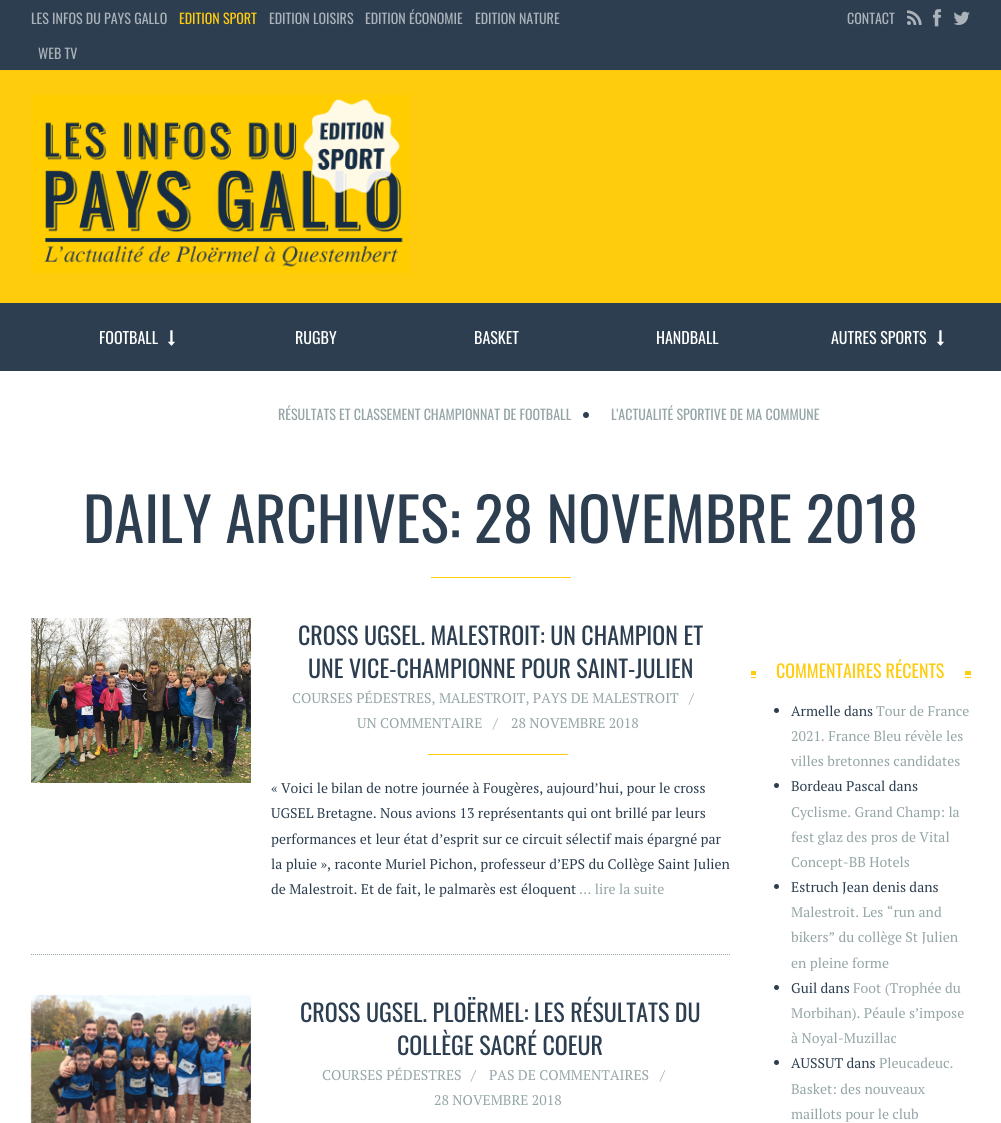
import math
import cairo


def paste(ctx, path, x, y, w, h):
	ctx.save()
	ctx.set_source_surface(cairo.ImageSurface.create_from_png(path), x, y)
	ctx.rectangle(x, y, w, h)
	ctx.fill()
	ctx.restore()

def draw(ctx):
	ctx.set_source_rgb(1, 1, 1)
	ctx.paint()
	ctx.set_source_rgb(0.173, 0.243, 0.314)
	ctx.rectangle(0, 0, 1001, 70)
	ctx.fill()
	ctx.select_font_face('Oswald')
	ctx.set_font_size(14)
	ctx.set_source_rgb(0.671, 0.698, 0.725)
	ctx.move_to(31, 24)
	ctx.show_text('LES INFOS DU PAYS GALLO')
	ctx.set_source_rgb(1, 0.8, 0.051)
	ctx.move_to(179, 24)
	ctx.show_text('EDITION SPORT')
	ctx.set_source_rgb(0.671, 0.698, 0.725)
	for x, y, s in [
		(269, 24, 'EDITION LOISIRS'),
		(365, 24, 'EDITION ÉCONOMIE'),
		(475, 24, 'EDITION NATURE'),
		(38, 59, 'WEB TV'),
		(847, 24, 'CONTACT'),
	]:
		ctx.move_to(x, y)
		ctx.show_text(s)
	paste(ctx, 'media/1.png', 907, 10, 15, 15)
	paste(ctx, 'media/2.png', 933, 9, 8, 18)
	paste(ctx, 'media/3.png', 953, 11, 17, 14)
	ctx.set_source_rgb(1, 0.8, 0.051)
	ctx.rectangle(0, 70, 1001, 233)
	ctx.fill()
	paste(ctx, 'media/4.png', 31, 95, 379, 178)
	ctx.set_source_rgb(0.173, 0.243, 0.314)
	ctx.rectangle(0, 303, 1001, 68)
	ctx.fill()
	ctx.set_font_size(16)
	ctx.set_source_rgb(1, 1, 1)
	ctx.move_to(99, 344)
	ctx.show_text('FOOTBALL')
	paste(ctx, 'media/5.png', 168, 330, 7, 16)
	for x, y, s in [
		(295, 344, 'RUGBY'),
		(474, 344, 'BASKET'),
		(656, 344, 'HANDBALL'),
		(831, 344, 'AUTRES SPORTS'),
	]:
		ctx.move_to(x, y)
		ctx.show_text(s)
	paste(ctx, 'media/5.png', 937, 330, 7, 16)
	ctx.set_font_size(14)
	ctx.set_source_rgb(0.584, 0.647, 0.651)
	ctx.move_to(278, 420)
	ctx.show_text('RÉSULTATS ET CLASSEMENT CHAMPIONNAT DE FOOTBALL')
	ctx.set_source_rgb(0.173, 0.243, 0.314)
	ctx.new_path()
	ctx.arc(586, 415, 3, 0, 2 * math.pi)
	ctx.fill()
	ctx.set_source_rgb(0.584, 0.647, 0.651)
	ctx.move_to(611, 420)
	ctx.show_text('L\'ACTUALITÉ SPORTIVE DE MA COMMUNE')
	ctx.set_font_size(60)
	ctx.set_source_rgb(0.173, 0.243, 0.314)
	ctx.move_to(83, 543)
	ctx.show_text('DAILY ARCHIVES: 28 NOVEMBRE 2018')
	ctx.set_source_rgb(1, 0.8, 0.051)
	ctx.rectangle(431, 577, 140, 1)
	ctx.fill()
	ctx.new_path()
	ctx.move_to(31, 954.5)
	ctx.line_to(731, 954.5)
	ctx.set_source_rgb(0.584, 0.647, 0.651)
	ctx.set_line_width(1)
	ctx.set_dash([1, 1])
	ctx.stroke()
	paste(ctx, 'media/6.png', 31, 618, 220, 165)
	ctx.set_font_size(24)
	ctx.set_source_rgb(0.173, 0.243, 0.314)
	ctx.move_to(298, 645)
	ctx.show_text('CROSS UGSEL. MALESTROIT: UN CHAMPION ET')
	ctx.move_to(308, 678)
	ctx.show_text('UNE VICE-CHAMPIONNE POUR SAINT-JULIEN')
	ctx.select_font_face('PT Serif')
	ctx.set_font_size(14)
	ctx.set_source_rgb(0.584, 0.647, 0.651)
	for x, y, s in [
		(292, 703, 'COURSES PÉDESTRES, MALESTROIT, PAYS DE MALESTROIT'),
		(689, 703, '/'),
		(357, 728, 'UN COMMENTAIRE'),
		(493, 728, '/'),
		(511, 728, '28 NOVEMBRE 2018'),
	]:
		ctx.move_to(x, y)
		ctx.show_text(s)
	ctx.set_source_rgb(1, 0.8, 0.051)
	ctx.rectangle(428, 754, 140, 1)
	ctx.fill()
	ctx.set_source_rgb(0.173, 0.243, 0.314)
	for x, y, s in [
		(271, 793, '« Voici le bilan de notre journée à Fougères, aujourd’hui, pour le cross'),
		(271, 818, 'UGSEL Bretagne. Nous avions 13 représentants qui ont brillé par leurs'),
		(271, 844, 'performances et leur état d’esprit sur ce circuit sélectif mais épargné par'),
		(271, 869, 'la pluie », raconte Muriel Pichon, professeur d’EPS du Collège Saint Julien'),
		(271, 894, 'de Malestroit. Et de fait, le palmarès est éloquent'),
	]:
		ctx.move_to(x, y)
		ctx.show_text(s)
	ctx.set_source_rgb(0.584, 0.647, 0.651)
	ctx.move_to(579, 894)
	ctx.show_text('… lire la suite')
	paste(ctx, 'media/7.png', 30, 994, 221, 129)
	ctx.select_font_face('Oswald')
	ctx.set_font_size(24)
	ctx.set_source_rgb(0.173, 0.243, 0.314)
	ctx.move_to(300, 1022)
	ctx.show_text('CROSS UGSEL. PLOËRMEL: LES RÉSULTATS DU')
	ctx.move_to(397, 1055)
	ctx.show_text('COLLÈGE SACRÉ COEUR')
	ctx.select_font_face('PT Serif')
	ctx.set_font_size(14)
	ctx.set_source_rgb(0.584, 0.647, 0.651)
	for x, y, s in [
		(322, 1080, 'COURSES PÉDESTRES'),
		(471, 1080, '/'),
		(489, 1080, 'PAS DE COMMENTAIRES'),
		(660, 1080, '/'),
		(434, 1105, '28 NOVEMBRE 2018'),
	]:
		ctx.move_to(x, y)
		ctx.show_text(s)
	ctx.set_source_rgb(1, 0.8, 0.051)
	ctx.rectangle(751, 671, 220, 4)
	ctx.rectangle(751, 677, 220, 1)
	ctx.fill()
	ctx.set_source_rgb(1, 1, 1)
	ctx.rectangle(756, 671, 209, 7)
	ctx.fill()
	ctx.select_font_face('Oswald')
	ctx.set_font_size(18)
	ctx.set_source_rgb(1, 0.8, 0.051)
	ctx.move_to(776, 678)
	ctx.show_text('COMMENTAIRES RÉCENTS')
	ctx.set_source_rgb(0.173, 0.243, 0.314)
	ctx.new_path()
	ctx.arc(776.5, 710.5, 2.5, 0, 2 * math.pi)
	ctx.fill()
	ctx.select_font_face('PT Serif')
	ctx.set_font_size(14)
	ctx.move_to(791, 716)
	ctx.show_text('Armelle dans')
	ctx.set_source_rgb(0.584, 0.647, 0.651)
	for x, y, s in [
		(876, 716, 'Tour de France'),
		(791, 741, '2021. France Bleu révèle les'),
		(791, 766, 'villes bretonnes candidates'),
	]:
		ctx.move_to(x, y)
		ctx.show_text(s)
	ctx.set_source_rgb(0.173, 0.243, 0.314)
	ctx.new_path()
	ctx.arc(776.5, 785.5, 2.5, 0, 2 * math.pi)
	ctx.fill()
	ctx.move_to(791, 791)
	ctx.show_text('Bordeau Pascal dans')
	ctx.set_source_rgb(0.584, 0.647, 0.651)
	for x, y, s in [
		(791, 817, 'Cyclisme. Grand Champ: la'),
		(791, 842, 'fest glaz des pros de Vital'),
		(791, 867, 'Concept-BB Hotels'),
	]:
		ctx.move_to(x, y)
		ctx.show_text(s)
	ctx.set_source_rgb(0.173, 0.243, 0.314)
	ctx.new_path()
	ctx.arc(776.5, 886.5, 2.5, 0, 2 * math.pi)
	ctx.fill()
	ctx.move_to(791, 892)
	ctx.show_text('Estruch Jean denis dans')
	ctx.set_source_rgb(0.584, 0.647, 0.651)
	for x, y, s in [
		(791, 917, 'Malestroit. Les “run and'),
		(791, 942, 'bikers” du collège St Julien'),
		(791, 968, 'en pleine forme'),
	]:
		ctx.move_to(x, y)
		ctx.show_text(s)
	ctx.set_source_rgb(0.173, 0.243, 0.314)
	ctx.new_path()
	ctx.arc(776.5, 987.5, 2.5, 0, 2 * math.pi)
	ctx.fill()
	ctx.move_to(791, 993)
	ctx.show_text('Guil dans')
	ctx.set_source_rgb(0.584, 0.647, 0.651)
	for x, y, s in [
		(853, 993, 'Foot (Trophée du'),
		(791, 1018, 'Morbihan). Péaule s’impose'),
		(791, 1043, 'à Noyal-Muzillac'),
	]:
		ctx.move_to(x, y)
		ctx.show_text(s)
	ctx.set_source_rgb(0.173, 0.243, 0.314)
	ctx.new_path()
	ctx.arc(776.5, 1062.5, 2.5, 0, 2 * math.pi)
	ctx.fill()
	ctx.move_to(791, 1068)
	ctx.show_text('AUSSUT dans')
	ctx.set_source_rgb(0.584, 0.647, 0.651)
	for x, y, s in [
		(879, 1068, 'Pleucadeuc.'),
		(791, 1094, 'Basket: des nouveaux'),
		(791, 1119, 'maillots pour le club'),
	]:
		ctx.move_to(x, y)
		ctx.show_text(s)


surface = cairo.ImageSurface(cairo.FORMAT_RGB24, 1001, 1123)
ctx = cairo.Context(surface)
options = cairo.FontOptions()
options.set_hint_metrics(cairo.HINT_METRICS_OFF)
options.set_hint_style(cairo.HINT_STYLE_NONE)
ctx.set_font_options(options)
ctx.set_miter_limit(4)
draw(ctx)
surface.write_to_png('image.png')
